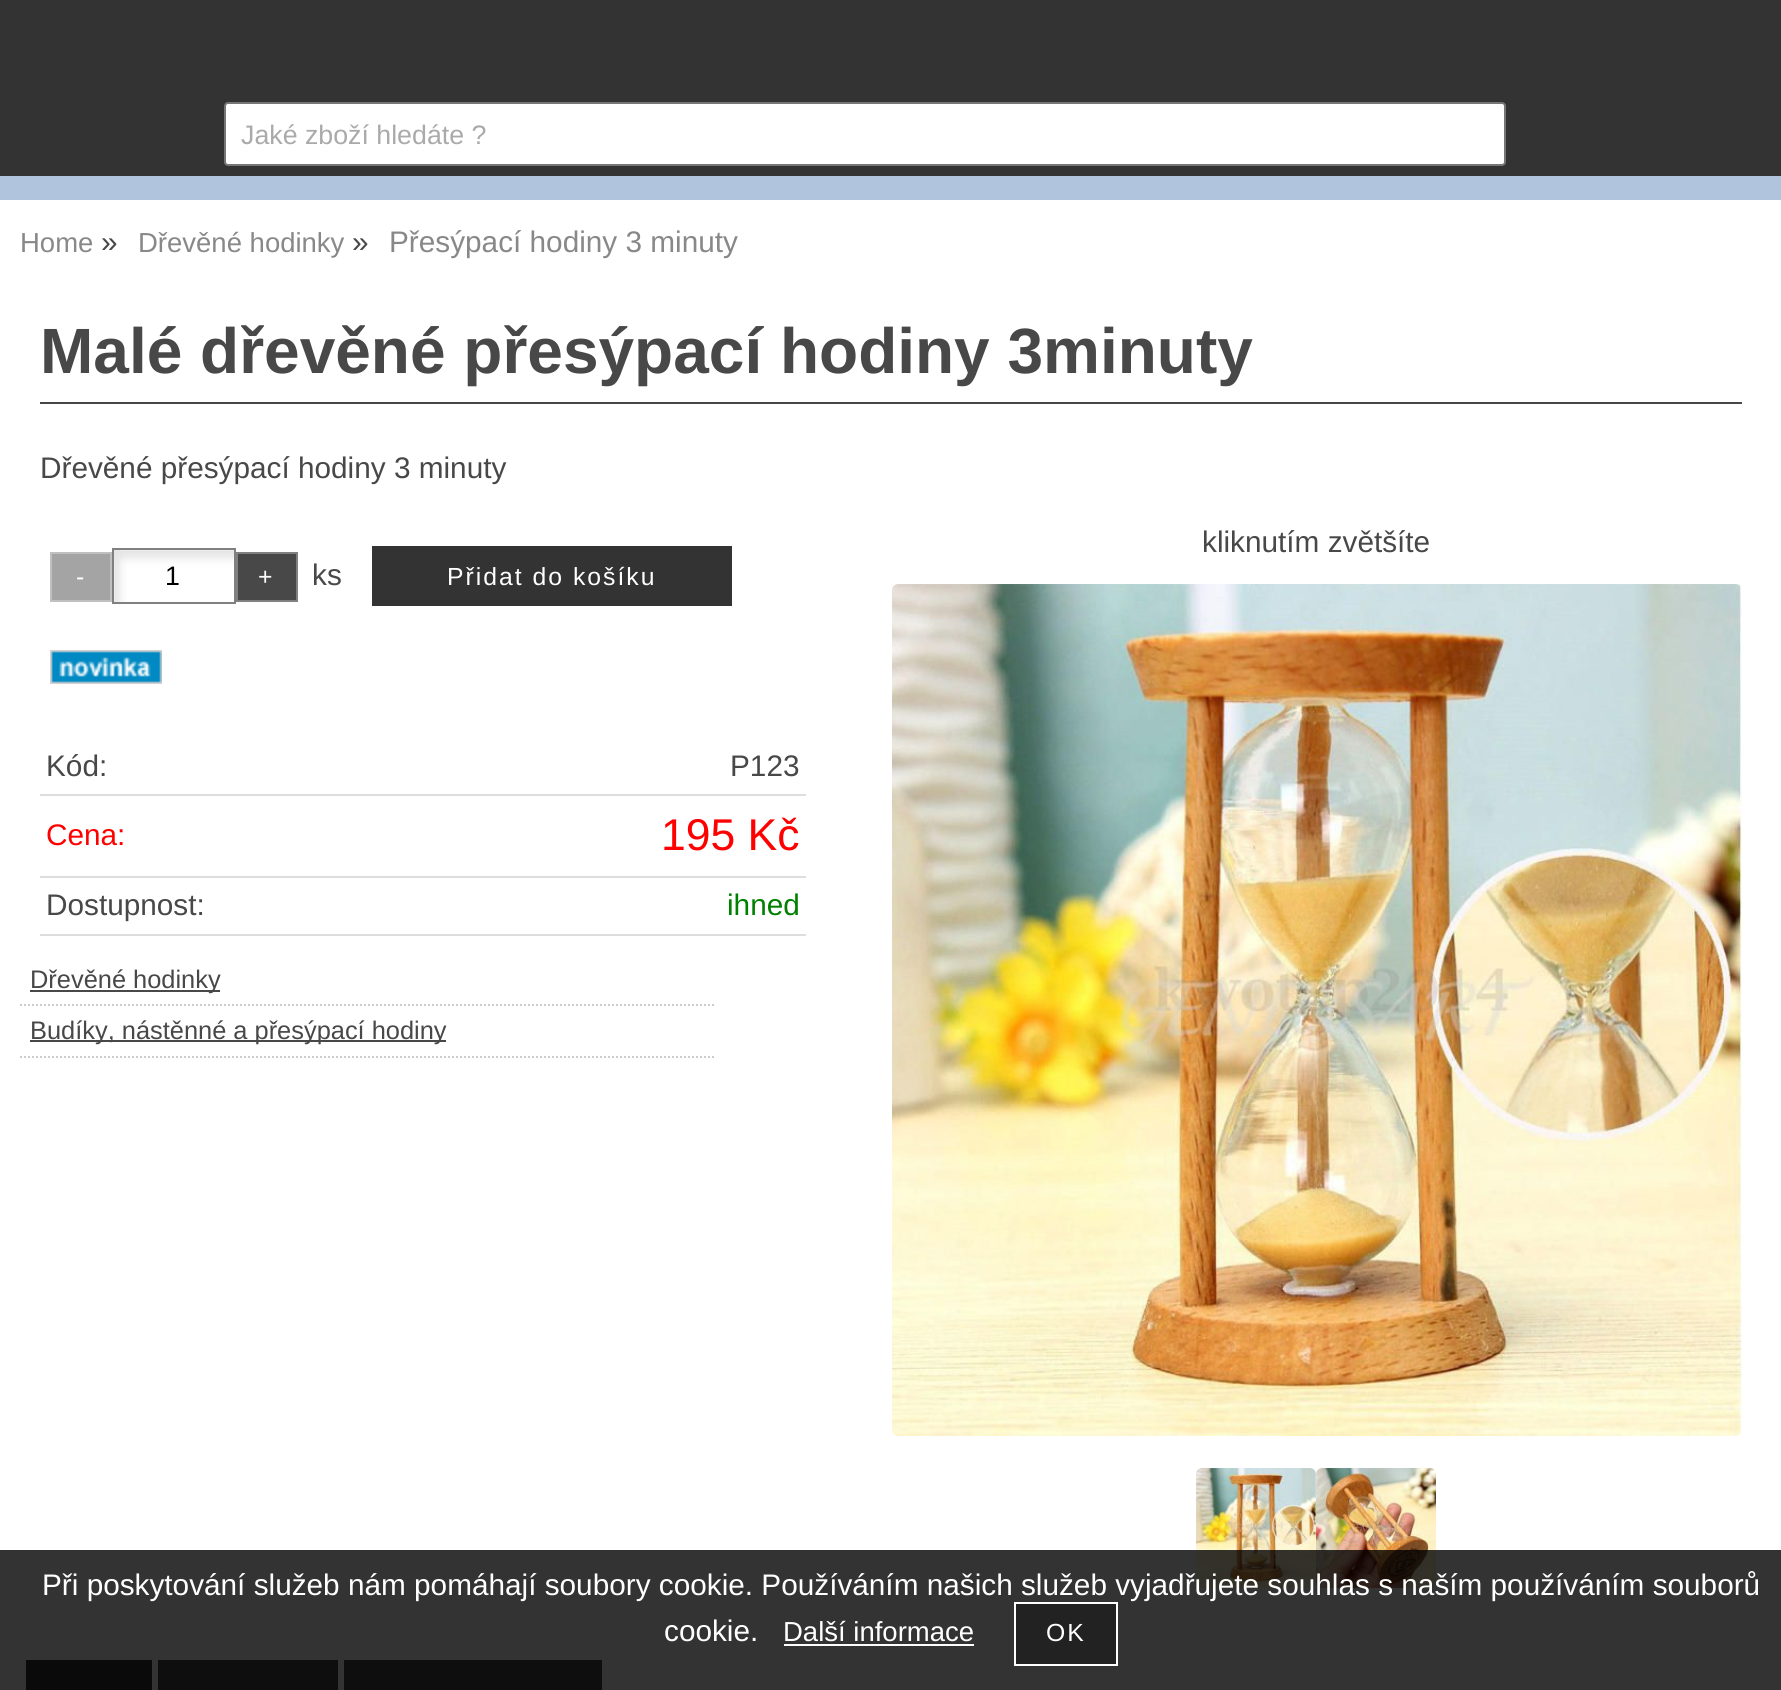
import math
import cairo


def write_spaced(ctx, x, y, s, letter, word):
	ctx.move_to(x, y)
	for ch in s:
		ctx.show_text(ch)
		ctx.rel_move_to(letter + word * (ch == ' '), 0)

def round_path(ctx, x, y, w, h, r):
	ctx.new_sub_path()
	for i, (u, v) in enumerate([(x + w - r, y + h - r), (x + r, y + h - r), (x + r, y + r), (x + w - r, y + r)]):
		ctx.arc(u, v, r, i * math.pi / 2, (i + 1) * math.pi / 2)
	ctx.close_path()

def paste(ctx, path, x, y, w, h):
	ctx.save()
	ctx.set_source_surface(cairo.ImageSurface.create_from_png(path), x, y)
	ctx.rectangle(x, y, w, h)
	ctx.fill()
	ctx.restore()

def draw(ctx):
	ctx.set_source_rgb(0.69, 0.769, 0.871)
	ctx.paint()
	ctx.set_source_rgb(0.2, 0.2, 0.2)
	ctx.rectangle(0, 0, 1781, 176)
	ctx.fill()
	ctx.set_source_rgb(1, 1, 1)
	round_path(ctx, 225, 103, 1280, 62, 3)
	ctx.fill_preserve()
	ctx.set_source_rgb(0.463, 0.463, 0.463)
	ctx.stroke()
	ctx.select_font_face('Liberation Sans')
	ctx.set_font_size(26.75)
	ctx.set_source_rgb(0.667, 0.667, 0.667)
	ctx.move_to(241, 144)
	ctx.show_text('Jaké zboží hledáte ?')
	ctx.set_source_rgb(1, 1, 1)
	ctx.rectangle(0, 200, 1781, 1490)
	ctx.fill()
	ctx.set_font_size(27.5)
	ctx.set_source_rgb(0.533, 0.533, 0.533)
	ctx.move_to(20, 252)
	ctx.show_text('Home')
	ctx.set_font_size(29.75)
	ctx.set_source_rgb(0.282, 0.282, 0.282)
	ctx.move_to(101, 252)
	ctx.show_text('»')
	ctx.set_font_size(27.5)
	ctx.set_source_rgb(0.533, 0.533, 0.533)
	ctx.move_to(138, 252)
	ctx.show_text('Dřevěné hodinky')
	ctx.set_font_size(29.75)
	ctx.set_source_rgb(0.282, 0.282, 0.282)
	ctx.move_to(352, 252)
	ctx.show_text('»')
	ctx.set_source_rgb(0.533, 0.533, 0.533)
	ctx.move_to(389, 252)
	ctx.show_text('Přesýpací hodiny 3 minuty')
	ctx.set_source_rgb(0.282, 0.282, 0.282)
	ctx.rectangle(40, 402, 1702, 2)
	ctx.fill()
	ctx.select_font_face('Liberation Sans', cairo.FONT_SLANT_NORMAL, cairo.FONT_WEIGHT_BOLD)
	ctx.set_font_size(64)
	ctx.move_to(40, 373)
	ctx.show_text('Malé dřevěné přesýpací hodiny 3minuty')
	ctx.select_font_face('Liberation Sans')
	ctx.set_font_size(29.75)
	ctx.move_to(40, 478)
	ctx.show_text('Dřevěné přesýpací hodiny 3 minuty')
	ctx.move_to(1202, 552)
	ctx.show_text('kliknutím zvětšíte')
	paste(ctx, 'media/1.png', 892, 584, 850, 852)
	paste(ctx, 'media/2.png', 1196, 1468, 120, 120)
	paste(ctx, 'media/3.png', 1316, 1468, 120, 120)
	ctx.set_source_rgb(0.643, 0.643, 0.643)
	ctx.rectangle(51, 553, 60, 48)
	ctx.fill_preserve()
	ctx.set_source_rgb(0.753, 0.753, 0.753)
	ctx.stroke()
	ctx.set_font_size(24.75)
	ctx.set_source_rgb(1, 1, 1)
	write_spaced(ctx, 76, 585, '-', 2, 0)
	paste(ctx, 'media/4.png', 114, 550, 120, 52)
	ctx.rectangle(113, 549, 122, 54)
	ctx.set_source_rgb(0.502, 0.502, 0.502)
	ctx.stroke()
	ctx.set_font_size(26.75)
	ctx.set_source_rgb(0, 0, 0)
	write_spaced(ctx, 165, 585, '1', 2, 0)
	ctx.set_source_rgb(0.282, 0.282, 0.282)
	ctx.rectangle(237, 553, 60, 48)
	ctx.fill_preserve()
	ctx.set_source_rgb(0.502, 0.502, 0.502)
	ctx.stroke()
	ctx.set_font_size(24.75)
	ctx.set_source_rgb(1, 1, 1)
	write_spaced(ctx, 258, 585, '+', 2, 0)
	ctx.set_font_size(29.75)
	ctx.set_source_rgb(0.282, 0.282, 0.282)
	ctx.move_to(312, 585)
	ctx.show_text('ks')
	ctx.set_source_rgb(0.2, 0.2, 0.2)
	ctx.rectangle(372, 546, 360, 60)
	ctx.fill()
	ctx.set_font_size(24.75)
	ctx.set_source_rgb(1, 1, 1)
	write_spaced(ctx, 447, 585, 'Přidat do košíku', 2, 0)
	paste(ctx, 'media/5.png', 50, 650, 112, 34)
	ctx.set_font_size(29.75)
	ctx.set_source_rgb(0.282, 0.282, 0.282)
	ctx.move_to(46, 776)
	ctx.show_text('Kód:')
	ctx.set_source_rgb(0.867, 0.867, 0.867)
	ctx.rectangle(40, 794, 766, 2)
	ctx.fill()
	ctx.set_source_rgb(0.282, 0.282, 0.282)
	ctx.move_to(730, 776)
	ctx.show_text('P123')
	ctx.set_source_rgb(1, 0, 0)
	ctx.move_to(46, 845)
	ctx.show_text('Cena:')
	ctx.set_source_rgb(0.867, 0.867, 0.867)
	ctx.rectangle(40, 876, 766, 2)
	ctx.fill()
	ctx.set_font_size(44.5)
	ctx.set_source_rgb(1, 0, 0)
	ctx.move_to(661, 850)
	ctx.show_text('195 Kč')
	ctx.set_font_size(29.75)
	ctx.set_source_rgb(0.282, 0.282, 0.282)
	ctx.move_to(46, 915)
	ctx.show_text('Dostupnost:')
	ctx.set_source_rgb(0.867, 0.867, 0.867)
	ctx.rectangle(40, 934, 766, 2)
	ctx.fill()
	ctx.set_source_rgb(0, 0.502, 0)
	ctx.move_to(727, 915)
	ctx.show_text('ihned')
	ctx.new_path()
	ctx.move_to(20, 1005)
	ctx.line_to(714, 1005)
	ctx.set_source_rgb(0.8, 0.8, 0.8)
	ctx.set_dash([2, 2])
	ctx.stroke()
	ctx.set_source_rgb(0.282, 0.282, 0.282)
	ctx.rectangle(30, 990, 190, 2)
	ctx.fill()
	ctx.set_font_size(25.4)
	ctx.move_to(30, 988)
	ctx.show_text('Dřevěné hodinky')
	ctx.new_path()
	ctx.move_to(20, 1057)
	ctx.line_to(714, 1057)
	ctx.set_source_rgb(0.8, 0.8, 0.8)
	ctx.stroke()
	ctx.set_source_rgb(0.282, 0.282, 0.282)
	ctx.rectangle(30, 1040, 416, 2)
	ctx.fill()
	ctx.move_to(30, 1039)
	ctx.show_text('Budíky, nástěnné a přesýpací hodiny')
	ctx.set_source_rgb(0.2, 0.2, 0.2)
	ctx.rectangle(26, 1660, 126, 30)
	ctx.fill()
	ctx.set_source_rgb(0.282, 0.282, 0.282)
	ctx.rectangle(158, 1660, 180, 30)
	ctx.rectangle(344, 1660, 258, 30)
	ctx.fill()
	ctx.set_source_rgba(0, 0, 0, 0.8)
	ctx.rectangle(0, 1550, 1781, 140)
	ctx.fill()
	ctx.set_font_size(29.75)
	ctx.set_source_rgb(1, 1, 1)
	ctx.move_to(42, 1595)
	ctx.show_text('Při poskytování služeb nám pomáhají soubory cookie. Používáním našich služeb vyjadřujete souhlas s naším používáním souborů')
	ctx.move_to(664, 1641)
	ctx.show_text('cookie.')
	ctx.set_font_size(27.5)
	ctx.move_to(783, 1641)
	ctx.show_text('Další informace')
	ctx.rectangle(784, 1644, 190, 2)
	ctx.fill()
	ctx.set_source_rgb(0.133, 0.133, 0.133)
	ctx.rectangle(1015, 1603, 102, 62)
	ctx.fill_preserve()
	ctx.set_source_rgb(1, 1, 1)
	ctx.set_dash([])
	ctx.stroke()
	ctx.set_font_size(24.75)
	write_spaced(ctx, 1046, 1641, 'OK', 2, 0)


surface = cairo.ImageSurface(cairo.FORMAT_RGB24, 1781, 1690)
ctx = cairo.Context(surface)
options = cairo.FontOptions()
options.set_hint_metrics(cairo.HINT_METRICS_OFF)
options.set_hint_style(cairo.HINT_STYLE_NONE)
ctx.set_font_options(options)
ctx.set_miter_limit(4)
draw(ctx)
surface.write_to_png('image.png')
